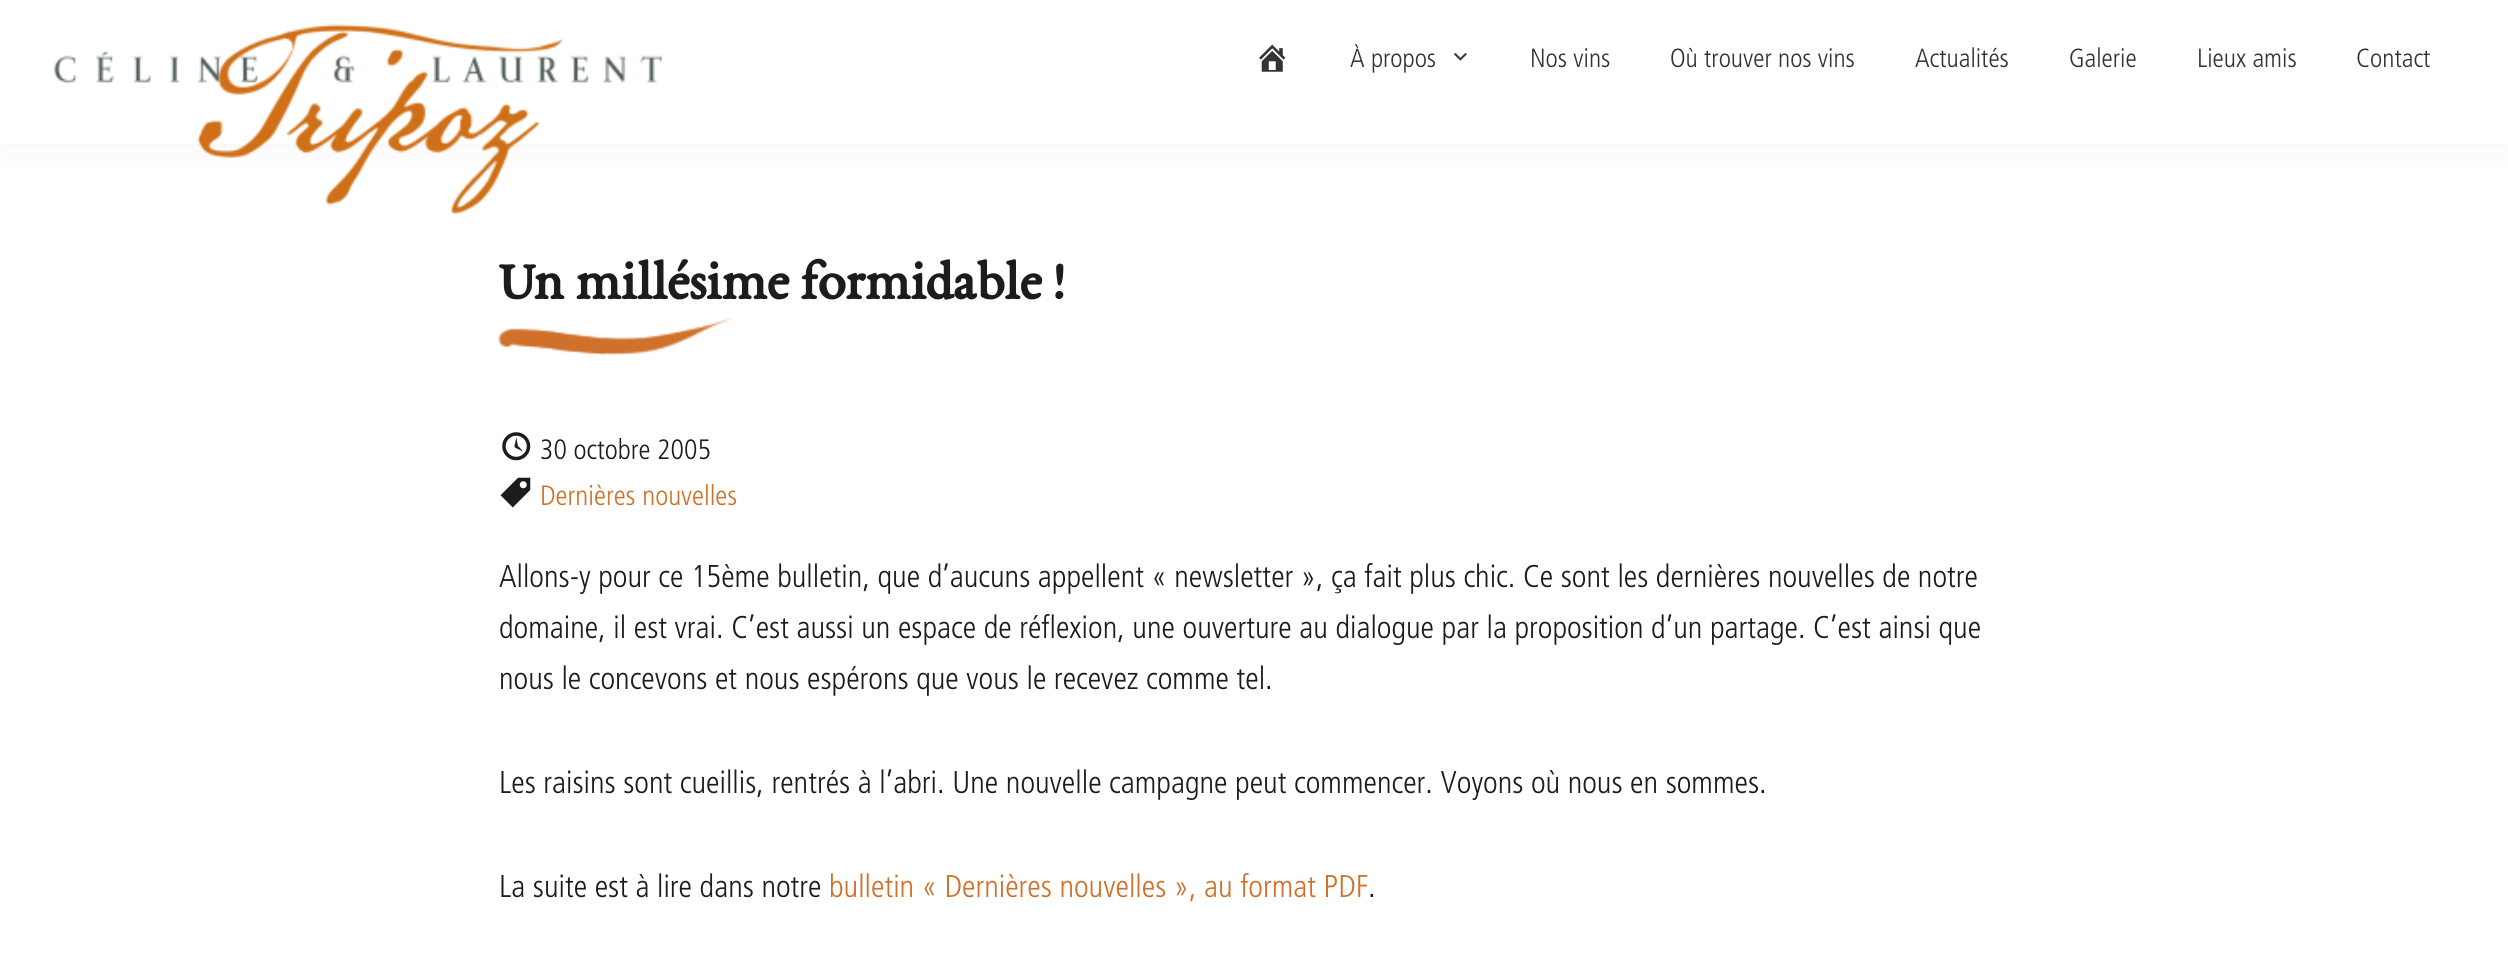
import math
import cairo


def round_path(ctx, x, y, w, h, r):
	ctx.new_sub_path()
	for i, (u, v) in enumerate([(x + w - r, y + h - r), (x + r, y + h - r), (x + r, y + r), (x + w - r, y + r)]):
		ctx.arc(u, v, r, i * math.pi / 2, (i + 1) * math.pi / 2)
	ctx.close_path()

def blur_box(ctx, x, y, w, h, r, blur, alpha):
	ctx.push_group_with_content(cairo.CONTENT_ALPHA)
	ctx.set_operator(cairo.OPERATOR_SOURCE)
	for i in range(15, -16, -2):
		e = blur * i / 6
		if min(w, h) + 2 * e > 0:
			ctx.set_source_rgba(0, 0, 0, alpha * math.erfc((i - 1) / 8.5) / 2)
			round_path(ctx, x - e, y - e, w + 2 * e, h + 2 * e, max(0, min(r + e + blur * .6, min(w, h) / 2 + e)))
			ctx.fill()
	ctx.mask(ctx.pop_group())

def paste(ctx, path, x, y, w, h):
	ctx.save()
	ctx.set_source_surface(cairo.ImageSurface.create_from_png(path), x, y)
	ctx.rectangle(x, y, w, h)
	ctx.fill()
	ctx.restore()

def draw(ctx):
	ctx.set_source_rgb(1, 1, 1)
	ctx.paint()
	ctx.set_source_rgb(0, 0, 0)
	blur_box(ctx, 0, 0, 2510, 144, 0, 17.5, 0.05)
	ctx.set_source_rgb(1, 1, 1)
	ctx.rectangle(0, 0, 2508, 144)
	ctx.fill()
	paste(ctx, 'media/1.png', 53, 24, 611, 190)
	paste(ctx, 'media/2.png', 1259, 44, 27, 28)
	ctx.select_font_face('Frutiger Light')
	ctx.set_font_size(26.25)
	ctx.set_source_rgb(0.2, 0.2, 0.2)
	ctx.move_to(1350, 67)
	ctx.show_text('À propos')
	paste(ctx, 'media/3.png', 1453, 53, 14, 8)
	for x, y, s in [
		(1530, 67, 'Nos vins'),
		(1670, 67, 'Où trouver nos vins'),
		(1915, 67, 'Actualités'),
		(2069, 67, 'Galerie'),
		(2197, 67, 'Lieux amis'),
		(2356, 67, 'Contact'),
	]:
		ctx.move_to(x, y)
		ctx.show_text(s)
	ctx.select_font_face('EB Garamond', cairo.FONT_SLANT_NORMAL, cairo.FONT_WEIGHT_BOLD)
	ctx.set_font_size(56)
	ctx.set_source_rgb(0.11, 0.11, 0.11)
	ctx.move_to(499, 299)
	ctx.show_text('Un millésime formidable !')
	paste(ctx, 'media/4.png', 498, 317, 235, 39)
	paste(ctx, 'media/5.png', 502, 432, 29, 29)
	ctx.select_font_face('Frutiger Light')
	ctx.set_font_size(28)
	ctx.move_to(540, 459)
	ctx.show_text('30 octobre 2005')
	paste(ctx, 'media/6.png', 500, 477, 31, 31)
	ctx.set_source_rgb(0.816, 0.439, 0.169)
	ctx.move_to(540, 505)
	ctx.show_text('Dernières nouvelles')
	ctx.set_font_size(31.5)
	ctx.set_source_rgb(0.11, 0.11, 0.11)
	for x, y, s in [
		(499, 587, 'Allons-y pour ce 15ème bulletin, que d’aucuns appellent « newsletter », ça fait plus chic. Ce sont les dernières nouvelles de notre'),
		(499, 638, 'domaine, il est vrai. C’est aussi un espace de réflexion, une ouverture au dialogue par la proposition d’un partage. C’est ainsi que'),
		(499, 689, 'nous le concevons et nous espérons que vous le recevez comme tel.'),
		(499, 793, 'Les raisins sont cueillis, rentrés à l’abri. Une nouvelle campagne peut commencer. Voyons où nous en sommes.'),
		(499, 897, 'La suite est à lire dans notre'),
	]:
		ctx.move_to(x, y)
		ctx.show_text(s)
	ctx.set_source_rgb(0.816, 0.439, 0.169)
	ctx.move_to(829, 897)
	ctx.show_text('bulletin « Dernières nouvelles », au format PDF')
	ctx.set_source_rgb(0.11, 0.11, 0.11)
	ctx.move_to(1368, 897)
	ctx.show_text('.')


surface = cairo.ImageSurface(cairo.FORMAT_RGB24, 2508, 953)
ctx = cairo.Context(surface)
options = cairo.FontOptions()
options.set_hint_metrics(cairo.HINT_METRICS_OFF)
options.set_hint_style(cairo.HINT_STYLE_NONE)
ctx.set_font_options(options)
ctx.set_miter_limit(4)
draw(ctx)
surface.write_to_png('image.png')
